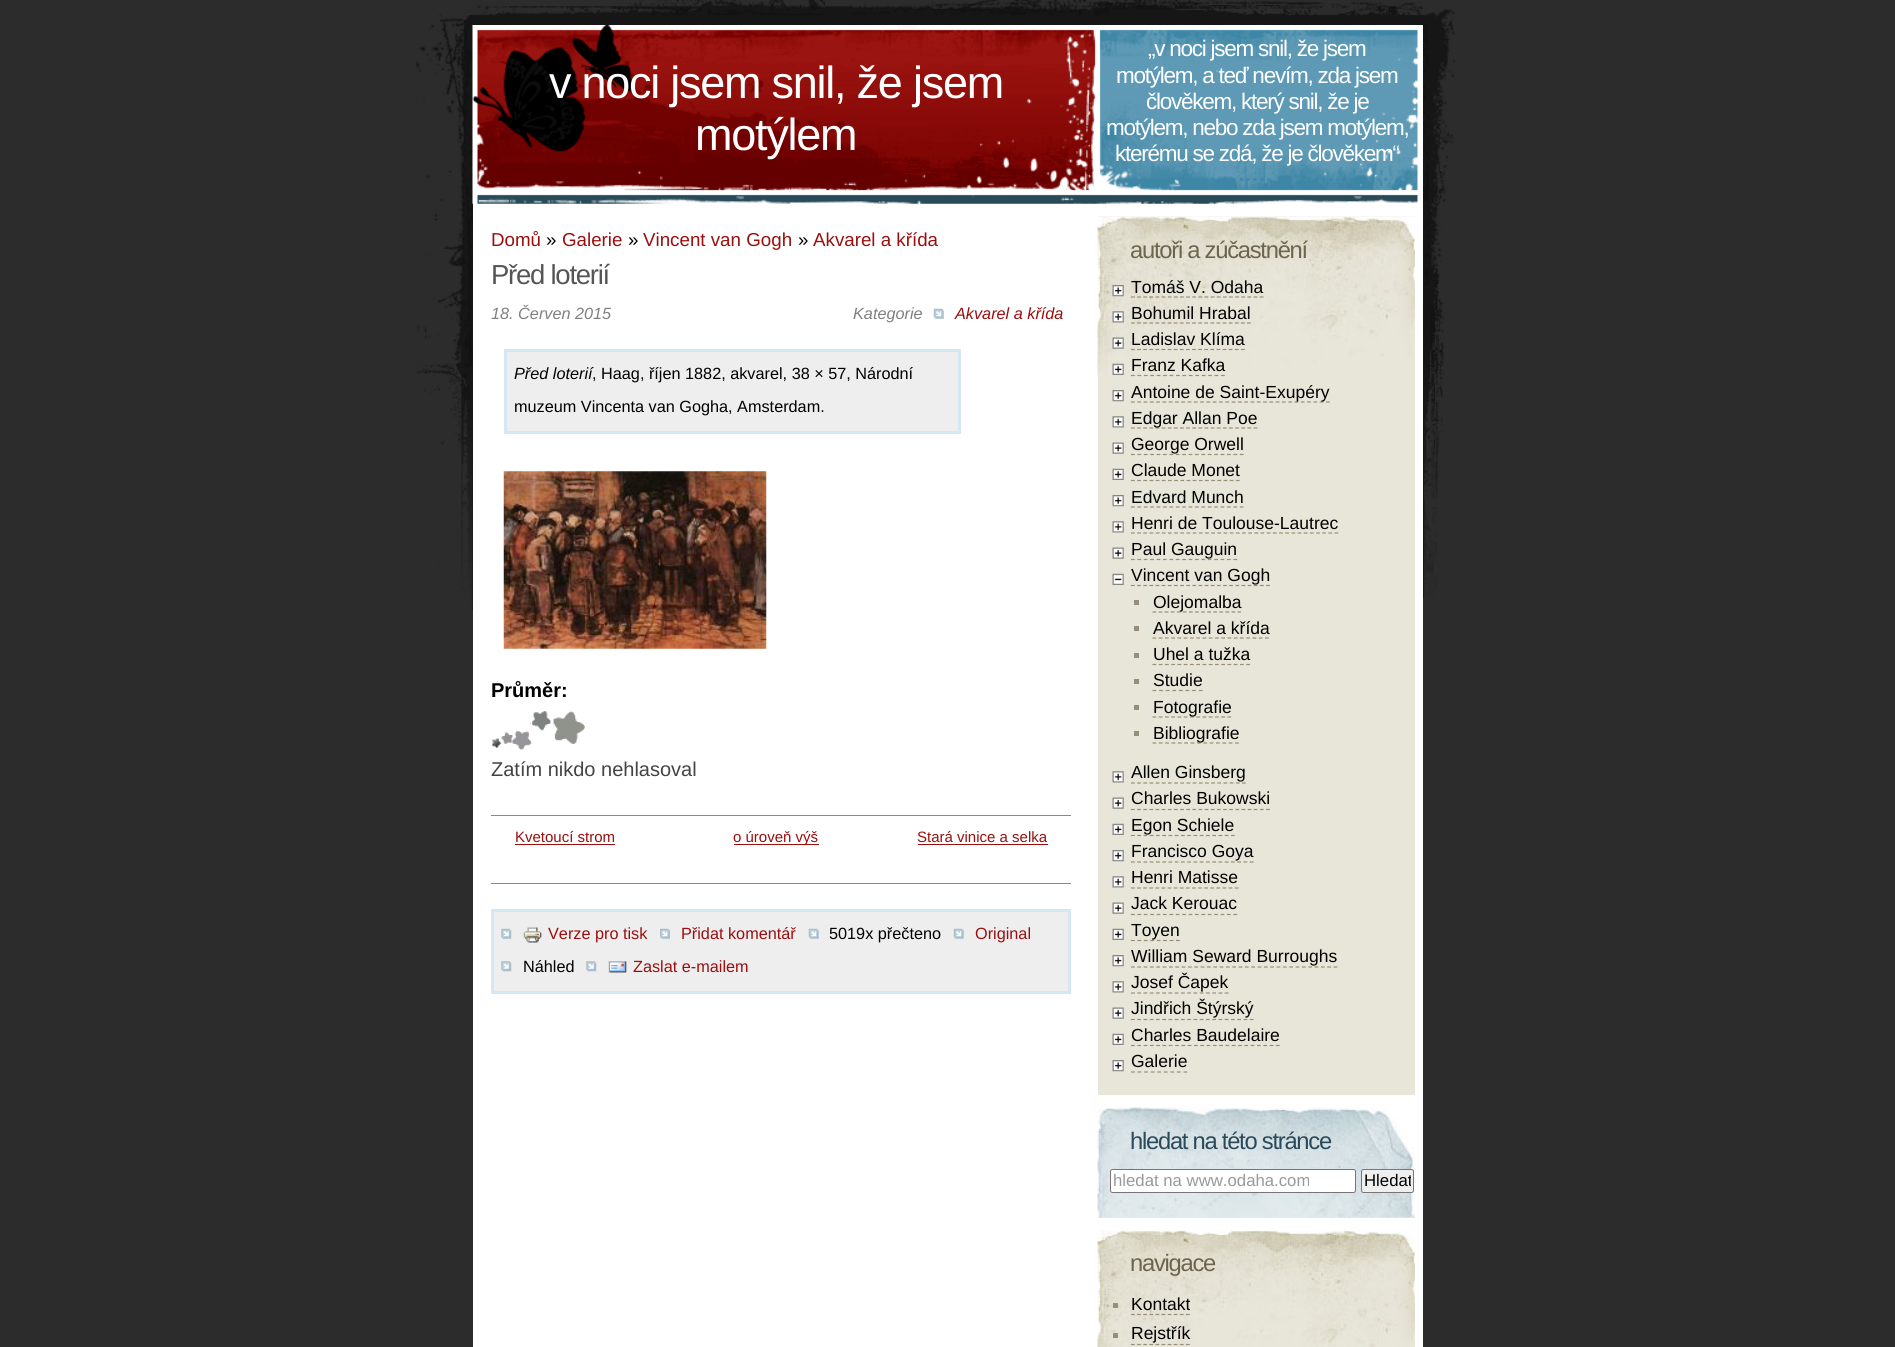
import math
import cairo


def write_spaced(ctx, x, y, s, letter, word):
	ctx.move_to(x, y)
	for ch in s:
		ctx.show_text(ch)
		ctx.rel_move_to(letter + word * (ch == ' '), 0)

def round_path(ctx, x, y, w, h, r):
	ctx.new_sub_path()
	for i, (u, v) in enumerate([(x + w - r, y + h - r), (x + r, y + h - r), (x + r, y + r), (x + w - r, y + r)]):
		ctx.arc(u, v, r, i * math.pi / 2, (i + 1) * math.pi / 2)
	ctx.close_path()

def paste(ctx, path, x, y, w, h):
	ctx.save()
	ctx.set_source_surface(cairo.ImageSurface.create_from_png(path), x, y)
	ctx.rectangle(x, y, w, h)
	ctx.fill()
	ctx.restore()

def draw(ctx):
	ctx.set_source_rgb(0.173, 0.173, 0.173)
	ctx.paint()
	paste(ctx, 'media/1.png', 416, 0, 1039, 610)
	ctx.set_source_rgb(1, 1, 1)
	ctx.rectangle(473, 25, 950, 1322)
	ctx.fill()
	paste(ctx, 'media/2.png', 472, 25, 946, 179)
	paste(ctx, 'media/3.png', 472, 25, 162, 127)
	ctx.select_font_face('Liberation Sans')
	ctx.set_font_size(45)
	write_spaced(ctx, 549, 98, 'v noci jsem snil, že jsem', -1.25, 0)
	write_spaced(ctx, 695, 150, 'motýlem', -1.25, 0)
	ctx.set_font_size(22.5)
	for x, y, s in [
		(1148, 56, '„v noci jsem snil, že jsem'),
		(1116, 83, 'motýlem, a teď nevím, zda jsem'),
		(1146, 109, 'člověkem, který snil, že je'),
		(1106, 135, 'motýlem, nebo zda jsem motýlem,'),
		(1115, 161, 'kterému se zdá, že je člověkem“'),
	]:
		write_spaced(ctx, x, y, s, -1.25, 0)
	ctx.set_font_size(18.75)
	ctx.set_source_rgb(0.608, 0.055, 0.055)
	ctx.move_to(491, 246)
	ctx.show_text('Domů')
	ctx.set_source_rgb(0, 0, 0)
	ctx.move_to(546, 246)
	ctx.show_text('»')
	ctx.set_source_rgb(0.608, 0.055, 0.055)
	ctx.move_to(562, 246)
	ctx.show_text('Galerie')
	ctx.set_source_rgb(0, 0, 0)
	ctx.move_to(628, 246)
	ctx.show_text('»')
	ctx.set_source_rgb(0.608, 0.055, 0.055)
	ctx.move_to(643, 246)
	ctx.show_text('Vincent van Gogh')
	ctx.set_source_rgb(0, 0, 0)
	ctx.move_to(798, 246)
	ctx.show_text('»')
	ctx.set_source_rgb(0.608, 0.055, 0.055)
	ctx.move_to(813, 246)
	ctx.show_text('Akvarel a křída')
	ctx.set_font_size(27.5)
	ctx.set_source_rgb(0.333, 0.333, 0.333)
	write_spaced(ctx, 491, 284, 'Před loterií', -1.25, 0)
	ctx.select_font_face('Liberation Sans', cairo.FONT_SLANT_ITALIC)
	ctx.set_font_size(16.25)
	ctx.set_source_rgb(0.502, 0.502, 0.502)
	ctx.move_to(491, 319)
	ctx.show_text('18. Červen 2015')
	ctx.move_to(853, 319)
	ctx.show_text('Kategorie')
	paste(ctx, 'media/4.png', 933, 308, 11, 11)
	ctx.set_source_rgb(0.608, 0.055, 0.055)
	ctx.move_to(955, 319)
	ctx.show_text('Akvarel a křída')
	ctx.set_source_rgb(0.933, 0.933, 0.933)
	ctx.rectangle(505.5, 350.5, 454, 82)
	ctx.fill_preserve()
	ctx.set_source_rgb(0.827, 0.906, 0.957)
	ctx.set_line_width(3)
	ctx.stroke()
	ctx.set_source_rgb(0, 0, 0)
	ctx.move_to(514, 379)
	ctx.show_text('Před loterií')
	ctx.select_font_face('Liberation Sans')
	ctx.move_to(592, 379)
	ctx.show_text(', Haag, říjen 1882, akvarel, 38 × 57, Národní')
	ctx.move_to(514, 412)
	ctx.show_text('muzeum Vincenta van Gogha, Amsterdam.')
	paste(ctx, 'media/5.png', 503, 471, 264, 178)
	ctx.select_font_face('Liberation Sans', cairo.FONT_SLANT_NORMAL, cairo.FONT_WEIGHT_BOLD)
	ctx.set_font_size(20)
	ctx.move_to(491, 697)
	ctx.show_text('Průměr:')
	paste(ctx, 'media/6.png', 492, 738, 10, 10)
	paste(ctx, 'media/7.png', 492, 738, 9, 10)
	paste(ctx, 'media/8.png', 501, 732, 12, 12)
	paste(ctx, 'media/9.png', 501, 732, 12, 12)
	paste(ctx, 'media/10.png', 512, 722, 20, 28)
	paste(ctx, 'media/11.png', 512, 722, 20, 28)
	paste(ctx, 'media/12.png', 532, 711, 20, 20)
	paste(ctx, 'media/13.png', 532, 711, 19, 20)
	paste(ctx, 'media/14.png', 553, 711, 32, 33)
	paste(ctx, 'media/15.png', 553, 711, 32, 33)
	ctx.select_font_face('Liberation Sans')
	ctx.set_source_rgb(0.267, 0.267, 0.267)
	ctx.move_to(491, 776)
	ctx.show_text('Zatím nikdo nehlasoval')
	ctx.set_source_rgb(0.533, 0.533, 0.533)
	ctx.rectangle(491, 815, 580, 1)
	ctx.fill()
	ctx.rectangle(491, 883, 580, 1)
	ctx.fill()
	ctx.set_font_size(15)
	ctx.set_source_rgb(0.608, 0.055, 0.055)
	ctx.move_to(515, 842)
	ctx.show_text('Kvetoucí strom')
	ctx.rectangle(515, 844, 100, 1)
	ctx.fill()
	ctx.rectangle(734, 844, 85, 1)
	ctx.fill()
	ctx.move_to(733, 842)
	ctx.show_text('o úroveň výš')
	ctx.move_to(917, 842)
	ctx.show_text('Stará vinice a selka')
	ctx.rectangle(918, 844, 130, 1)
	ctx.fill()
	ctx.set_source_rgb(0.933, 0.933, 0.933)
	ctx.rectangle(492.5, 910.5, 577, 82)
	ctx.fill_preserve()
	ctx.set_source_rgb(0.827, 0.906, 0.957)
	ctx.stroke()
	paste(ctx, 'media/16.png', 501, 928, 11, 11)
	paste(ctx, 'media/17.png', 523, 927, 19, 16)
	ctx.set_font_size(16.25)
	ctx.set_source_rgb(0.608, 0.055, 0.055)
	ctx.move_to(548, 939)
	ctx.show_text('Verze pro tisk')
	paste(ctx, 'media/18.png', 660, 928, 10, 11)
	ctx.move_to(681, 939)
	ctx.show_text('Přidat komentář')
	paste(ctx, 'media/19.png', 808, 928, 11, 11)
	ctx.set_source_rgb(0, 0, 0)
	ctx.move_to(829, 939)
	ctx.show_text('5019x přečteno')
	paste(ctx, 'media/19.png', 953, 928, 11, 11)
	ctx.set_source_rgb(0.608, 0.055, 0.055)
	ctx.move_to(975, 939)
	ctx.show_text('Original')
	paste(ctx, 'media/20.png', 501, 961, 11, 11)
	ctx.set_source_rgb(0, 0, 0)
	ctx.move_to(523, 972)
	ctx.show_text('Náhled')
	paste(ctx, 'media/20.png', 586, 961, 11, 11)
	paste(ctx, 'media/21.png', 608, 961, 19, 12)
	ctx.set_source_rgb(0.608, 0.055, 0.055)
	ctx.move_to(633, 972)
	ctx.show_text('Zaslat e-mailem')
	ctx.set_source_rgb(0.91, 0.902, 0.851)
	ctx.rectangle(1098, 216, 317, 879)
	ctx.fill()
	paste(ctx, 'media/22.png', 1097, 216, 318, 161)
	ctx.set_font_size(23.75)
	ctx.set_source_rgb(0.424, 0.392, 0.302)
	write_spaced(ctx, 1130, 258, 'autoři a zúčastnění', -1.25, 0)
	paste(ctx, 'media/23.png', 1112, 285, 12, 12)
	ctx.set_font_size(17.5)
	ctx.set_source_rgb(0, 0, 0)
	ctx.move_to(1131, 293)
	ctx.show_text('Tomáš V. Odaha')
	ctx.new_path()
	ctx.move_to(1131, 297)
	ctx.line_to(1264, 297)
	ctx.set_source_rgb(0.588, 0.557, 0.467)
	ctx.set_line_width(1.2)
	ctx.set_dash([3.75, 2.38])
	ctx.stroke()
	paste(ctx, 'media/24.png', 1112, 311, 12, 12)
	ctx.set_source_rgb(0, 0, 0)
	ctx.move_to(1131, 319)
	ctx.show_text('Bohumil Hrabal')
	ctx.new_path()
	ctx.move_to(1131, 323)
	ctx.line_to(1251, 323)
	ctx.set_source_rgb(0.588, 0.557, 0.467)
	ctx.set_dash([3.75, 2.36])
	ctx.stroke()
	paste(ctx, 'media/25.png', 1112, 337, 12, 12)
	ctx.set_source_rgb(0, 0, 0)
	ctx.move_to(1131, 345)
	ctx.show_text('Ladislav Klíma')
	ctx.new_path()
	ctx.move_to(1131, 349.5)
	ctx.line_to(1245, 349.5)
	ctx.set_source_rgb(0.588, 0.557, 0.467)
	ctx.stroke()
	paste(ctx, 'media/26.png', 1112, 363, 12, 12)
	ctx.set_source_rgb(0, 0, 0)
	ctx.move_to(1131, 371)
	ctx.show_text('Franz Kafka')
	ctx.new_path()
	ctx.move_to(1131, 375.5)
	ctx.line_to(1225, 375.5)
	ctx.set_source_rgb(0.588, 0.557, 0.467)
	ctx.set_dash([3.75, 2.68])
	ctx.stroke()
	paste(ctx, 'media/27.png', 1112, 390, 12, 12)
	ctx.new_path()
	ctx.move_to(1131, 402)
	ctx.line_to(1330, 402)
	ctx.set_dash([3.75, 2.54])
	ctx.stroke()
	ctx.set_source_rgb(0, 0, 0)
	ctx.move_to(1131, 398)
	ctx.show_text('Antoine de Saint-Exupéry')
	paste(ctx, 'media/28.png', 1112, 416, 12, 12)
	ctx.new_path()
	ctx.move_to(1131, 428)
	ctx.line_to(1257.5, 428)
	ctx.set_source_rgb(0.588, 0.557, 0.467)
	ctx.set_dash([3.75, 2.38])
	ctx.stroke()
	ctx.set_source_rgb(0, 0, 0)
	ctx.move_to(1131, 424)
	ctx.show_text('Edgar Allan Poe')
	paste(ctx, 'media/29.png', 1112, 442, 12, 12)
	ctx.new_path()
	ctx.move_to(1131, 454.5)
	ctx.line_to(1244, 454.5)
	ctx.set_source_rgb(0.588, 0.557, 0.467)
	ctx.set_dash([3.75, 2.65])
	ctx.stroke()
	ctx.set_source_rgb(0, 0, 0)
	ctx.move_to(1131, 450)
	ctx.show_text('George Orwell')
	paste(ctx, 'media/30.png', 1112, 468, 12, 12)
	ctx.move_to(1131, 476)
	ctx.show_text('Claude Monet')
	ctx.new_path()
	ctx.move_to(1131, 480.5)
	ctx.line_to(1240, 480.5)
	ctx.set_source_rgb(0.588, 0.557, 0.467)
	ctx.set_dash([3.75, 2.42])
	ctx.stroke()
	paste(ctx, 'media/27.png', 1112, 495, 12, 12)
	ctx.set_source_rgb(0, 0, 0)
	ctx.move_to(1131, 503)
	ctx.show_text('Edvard Munch')
	ctx.new_path()
	ctx.move_to(1131, 507)
	ctx.line_to(1244, 507)
	ctx.set_source_rgb(0.588, 0.557, 0.467)
	ctx.set_dash([3.75, 2.65])
	ctx.stroke()
	paste(ctx, 'media/28.png', 1112, 521, 12, 12)
	ctx.set_source_rgb(0, 0, 0)
	ctx.move_to(1131, 529)
	ctx.show_text('Henri de Toulouse-Lautrec')
	ctx.new_path()
	ctx.move_to(1131, 533)
	ctx.line_to(1339, 533)
	ctx.set_source_rgb(0.588, 0.557, 0.467)
	ctx.set_dash([3.75, 2.42])
	ctx.stroke()
	paste(ctx, 'media/29.png', 1112, 547, 12, 12)
	ctx.new_path()
	ctx.move_to(1131, 559.5)
	ctx.line_to(1237.5, 559.5)
	ctx.set_dash([3.75, 2.65])
	ctx.stroke()
	ctx.set_source_rgb(0, 0, 0)
	ctx.move_to(1131, 555)
	ctx.show_text('Paul Gauguin')
	paste(ctx, 'media/31.png', 1112, 573, 12, 12)
	ctx.new_path()
	ctx.move_to(1131, 585.5)
	ctx.line_to(1270, 585.5)
	ctx.set_source_rgb(0.588, 0.557, 0.467)
	ctx.set_dash([3.75, 2.39])
	ctx.stroke()
	ctx.set_source_rgb(0, 0, 0)
	ctx.move_to(1131, 581)
	ctx.show_text('Vincent van Gogh')
	ctx.set_source_rgb(0.588, 0.557, 0.467)
	ctx.rectangle(1134, 600, 5, 5)
	ctx.fill()
	ctx.new_path()
	ctx.move_to(1152.5, 612)
	ctx.line_to(1241, 612)
	ctx.set_dash([3.75, 2.33])
	ctx.stroke()
	ctx.set_source_rgb(0, 0, 0)
	ctx.move_to(1153, 608)
	ctx.show_text('Olejomalba')
	ctx.set_source_rgb(0.588, 0.557, 0.467)
	ctx.rectangle(1134, 626, 5, 5)
	ctx.fill()
	ctx.set_source_rgb(0, 0, 0)
	ctx.move_to(1153, 634)
	ctx.show_text('Akvarel a křída')
	ctx.new_path()
	ctx.move_to(1152.5, 638)
	ctx.line_to(1269, 638)
	ctx.set_source_rgb(0.588, 0.557, 0.467)
	ctx.set_dash([3.75, 2.5])
	ctx.stroke()
	ctx.rectangle(1134, 653, 5, 5)
	ctx.fill()
	ctx.set_source_rgb(0, 0, 0)
	ctx.move_to(1153, 660)
	ctx.show_text('Uhel a tužka')
	ctx.new_path()
	ctx.move_to(1152.5, 664.5)
	ctx.line_to(1250, 664.5)
	ctx.set_source_rgb(0.588, 0.557, 0.467)
	ctx.stroke()
	ctx.rectangle(1134, 679, 5, 5)
	ctx.fill()
	ctx.set_source_rgb(0, 0, 0)
	ctx.move_to(1153, 686)
	ctx.show_text('Studie')
	ctx.new_path()
	ctx.move_to(1152.5, 690.5)
	ctx.line_to(1202.5, 690.5)
	ctx.set_source_rgb(0.588, 0.557, 0.467)
	ctx.set_dash([3.75, 2.86])
	ctx.stroke()
	ctx.rectangle(1134, 705, 5, 5)
	ctx.fill()
	ctx.new_path()
	ctx.move_to(1152.5, 717)
	ctx.line_to(1231, 717)
	ctx.set_dash([3.75, 2.5])
	ctx.stroke()
	ctx.set_source_rgb(0, 0, 0)
	ctx.move_to(1153, 713)
	ctx.show_text('Fotografie')
	ctx.set_source_rgb(0.588, 0.557, 0.467)
	ctx.rectangle(1134, 731, 5, 5)
	ctx.fill()
	ctx.new_path()
	ctx.move_to(1152.5, 743)
	ctx.line_to(1239, 743)
	ctx.set_dash([3.75, 2.6])
	ctx.stroke()
	ctx.set_source_rgb(0, 0, 0)
	ctx.move_to(1153, 739)
	ctx.show_text('Bibliografie')
	paste(ctx, 'media/28.png', 1112, 771, 12, 12)
	ctx.move_to(1131, 778)
	ctx.show_text('Allen Ginsberg')
	ctx.new_path()
	ctx.move_to(1131, 783)
	ctx.line_to(1246, 783)
	ctx.set_source_rgb(0.588, 0.557, 0.467)
	ctx.set_dash([3.75, 2.42])
	ctx.stroke()
	paste(ctx, 'media/29.png', 1112, 797, 12, 12)
	ctx.set_source_rgb(0, 0, 0)
	ctx.move_to(1131, 804)
	ctx.show_text('Charles Bukowski')
	ctx.new_path()
	ctx.move_to(1131, 809.5)
	ctx.line_to(1270, 809.5)
	ctx.set_source_rgb(0.588, 0.557, 0.467)
	ctx.set_dash([3.75, 2.39])
	ctx.stroke()
	paste(ctx, 'media/30.png', 1112, 823, 12, 12)
	ctx.new_path()
	ctx.move_to(1131, 835.5)
	ctx.line_to(1235, 835.5)
	ctx.set_dash([3.75, 2.5])
	ctx.stroke()
	ctx.set_source_rgb(0, 0, 0)
	ctx.move_to(1131, 831)
	ctx.show_text('Egon Schiele')
	paste(ctx, 'media/27.png', 1112, 850, 12, 12)
	ctx.move_to(1131, 857)
	ctx.show_text('Francisco Goya')
	ctx.new_path()
	ctx.move_to(1131, 862)
	ctx.line_to(1254, 862)
	ctx.set_source_rgb(0.588, 0.557, 0.467)
	ctx.stroke()
	paste(ctx, 'media/28.png', 1112, 876, 12, 12)
	ctx.set_source_rgb(0, 0, 0)
	ctx.move_to(1131, 883)
	ctx.show_text('Henri Matisse')
	ctx.new_path()
	ctx.move_to(1131, 888)
	ctx.line_to(1239, 888)
	ctx.set_source_rgb(0.588, 0.557, 0.467)
	ctx.set_dash([3.75, 2.35])
	ctx.stroke()
	paste(ctx, 'media/29.png', 1112, 902, 12, 12)
	ctx.set_source_rgb(0, 0, 0)
	ctx.move_to(1131, 909)
	ctx.show_text('Jack Kerouac')
	ctx.new_path()
	ctx.move_to(1131, 914.5)
	ctx.line_to(1237.5, 914.5)
	ctx.set_source_rgb(0.588, 0.557, 0.467)
	ctx.set_dash([3.75, 2.65])
	ctx.stroke()
	paste(ctx, 'media/30.png', 1112, 928, 12, 12)
	ctx.new_path()
	ctx.move_to(1131, 940.5)
	ctx.line_to(1180, 940.5)
	ctx.set_dash([3.75, 2.68])
	ctx.stroke()
	ctx.set_source_rgb(0, 0, 0)
	ctx.move_to(1131, 936)
	ctx.show_text('Toyen')
	paste(ctx, 'media/27.png', 1112, 955, 12, 12)
	ctx.move_to(1131, 962)
	ctx.show_text('William Seward Burroughs')
	ctx.new_path()
	ctx.move_to(1131, 967)
	ctx.line_to(1337.5, 967)
	ctx.set_source_rgb(0.588, 0.557, 0.467)
	ctx.set_dash([3.75, 2.58])
	ctx.stroke()
	paste(ctx, 'media/28.png', 1112, 981, 12, 12)
	ctx.set_source_rgb(0, 0, 0)
	ctx.move_to(1131, 988)
	ctx.show_text('Josef Čapek')
	ctx.new_path()
	ctx.move_to(1131, 993)
	ctx.line_to(1229, 993)
	ctx.set_source_rgb(0.588, 0.557, 0.467)
	ctx.set_dash([3.75, 2.5])
	ctx.stroke()
	paste(ctx, 'media/29.png', 1112, 1007, 12, 12)
	ctx.set_source_rgb(0, 0, 0)
	ctx.move_to(1131, 1014)
	ctx.show_text('Jindřich Štýrský')
	ctx.new_path()
	ctx.move_to(1131, 1019.5)
	ctx.line_to(1254, 1019.5)
	ctx.set_source_rgb(0.588, 0.557, 0.467)
	ctx.stroke()
	paste(ctx, 'media/30.png', 1112, 1033, 12, 12)
	ctx.set_source_rgb(0, 0, 0)
	ctx.move_to(1131, 1041)
	ctx.show_text('Charles Baudelaire')
	ctx.new_path()
	ctx.move_to(1131, 1045.5)
	ctx.line_to(1280, 1045.5)
	ctx.set_source_rgb(0.588, 0.557, 0.467)
	ctx.set_dash([3.75, 2.55])
	ctx.stroke()
	paste(ctx, 'media/27.png', 1112, 1060, 12, 12)
	ctx.set_source_rgb(0, 0, 0)
	ctx.move_to(1131, 1067)
	ctx.show_text('Galerie')
	ctx.new_path()
	ctx.move_to(1131, 1072)
	ctx.line_to(1187.5, 1072)
	ctx.set_source_rgb(0.588, 0.557, 0.467)
	ctx.set_dash([3.75, 2.81])
	ctx.stroke()
	ctx.set_source_rgb(0.886, 0.922, 0.929)
	ctx.rectangle(1098, 1217, 317, 1)
	ctx.fill()
	paste(ctx, 'media/32.png', 1097, 1107, 318, 111)
	ctx.set_font_size(23.75)
	ctx.set_source_rgb(0.161, 0.29, 0.349)
	write_spaced(ctx, 1130, 1149, 'hledat na této stránce', -1.25, 0)
	ctx.set_source_rgb(1, 1, 1)
	round_path(ctx, 1110.5, 1169.5, 245, 23, 2)
	ctx.fill_preserve()
	ctx.set_source_rgb(0.463, 0.463, 0.463)
	ctx.set_line_width(1)
	ctx.set_dash([])
	ctx.stroke()
	ctx.set_font_size(16.75)
	ctx.set_source_rgb(0.6, 0.6, 0.6)
	ctx.move_to(1113, 1186)
	ctx.show_text('hledat na www.odaha.com')
	ctx.set_source_rgb(0.937, 0.937, 0.937)
	round_path(ctx, 1361.5, 1169.5, 52, 23, 2)
	ctx.fill_preserve()
	ctx.set_source_rgb(0.463, 0.463, 0.463)
	ctx.stroke()
	ctx.save()
	ctx.rectangle(1364, 1171, 47, 19)
	ctx.clip()
	ctx.set_source_rgb(0, 0, 0)
	ctx.move_to(1364, 1186)
	ctx.show_text('Hledat')
	ctx.restore()
	paste(ctx, 'media/33.png', 1097, 1230, 318, 117)
	ctx.set_font_size(23.75)
	ctx.set_source_rgb(0.424, 0.392, 0.302)
	write_spaced(ctx, 1130, 1271, 'navigace', -1.25, 0)
	ctx.set_source_rgb(0.588, 0.557, 0.467)
	ctx.rectangle(1113, 1303, 5, 5)
	ctx.fill()
	ctx.set_font_size(17.5)
	ctx.set_source_rgb(0, 0, 0)
	ctx.move_to(1131, 1310)
	ctx.show_text('Kontakt')
	ctx.new_path()
	ctx.move_to(1131, 1314.5)
	ctx.line_to(1190, 1314.5)
	ctx.set_source_rgb(0.588, 0.557, 0.467)
	ctx.set_line_width(1.2)
	ctx.set_dash([3.75, 2.36])
	ctx.stroke()
	ctx.rectangle(1113, 1333, 5, 5)
	ctx.fill()
	ctx.set_source_rgb(0, 0, 0)
	ctx.move_to(1131, 1339)
	ctx.show_text('Rejstřík')
	ctx.new_path()
	ctx.move_to(1131, 1344.5)
	ctx.line_to(1190, 1344.5)
	ctx.set_source_rgb(0.588, 0.557, 0.467)
	ctx.stroke()


surface = cairo.ImageSurface(cairo.FORMAT_RGB24, 1895, 1347)
ctx = cairo.Context(surface)
options = cairo.FontOptions()
options.set_hint_metrics(cairo.HINT_METRICS_OFF)
options.set_hint_style(cairo.HINT_STYLE_NONE)
ctx.set_font_options(options)
ctx.set_miter_limit(4)
draw(ctx)
surface.write_to_png('image.png')
